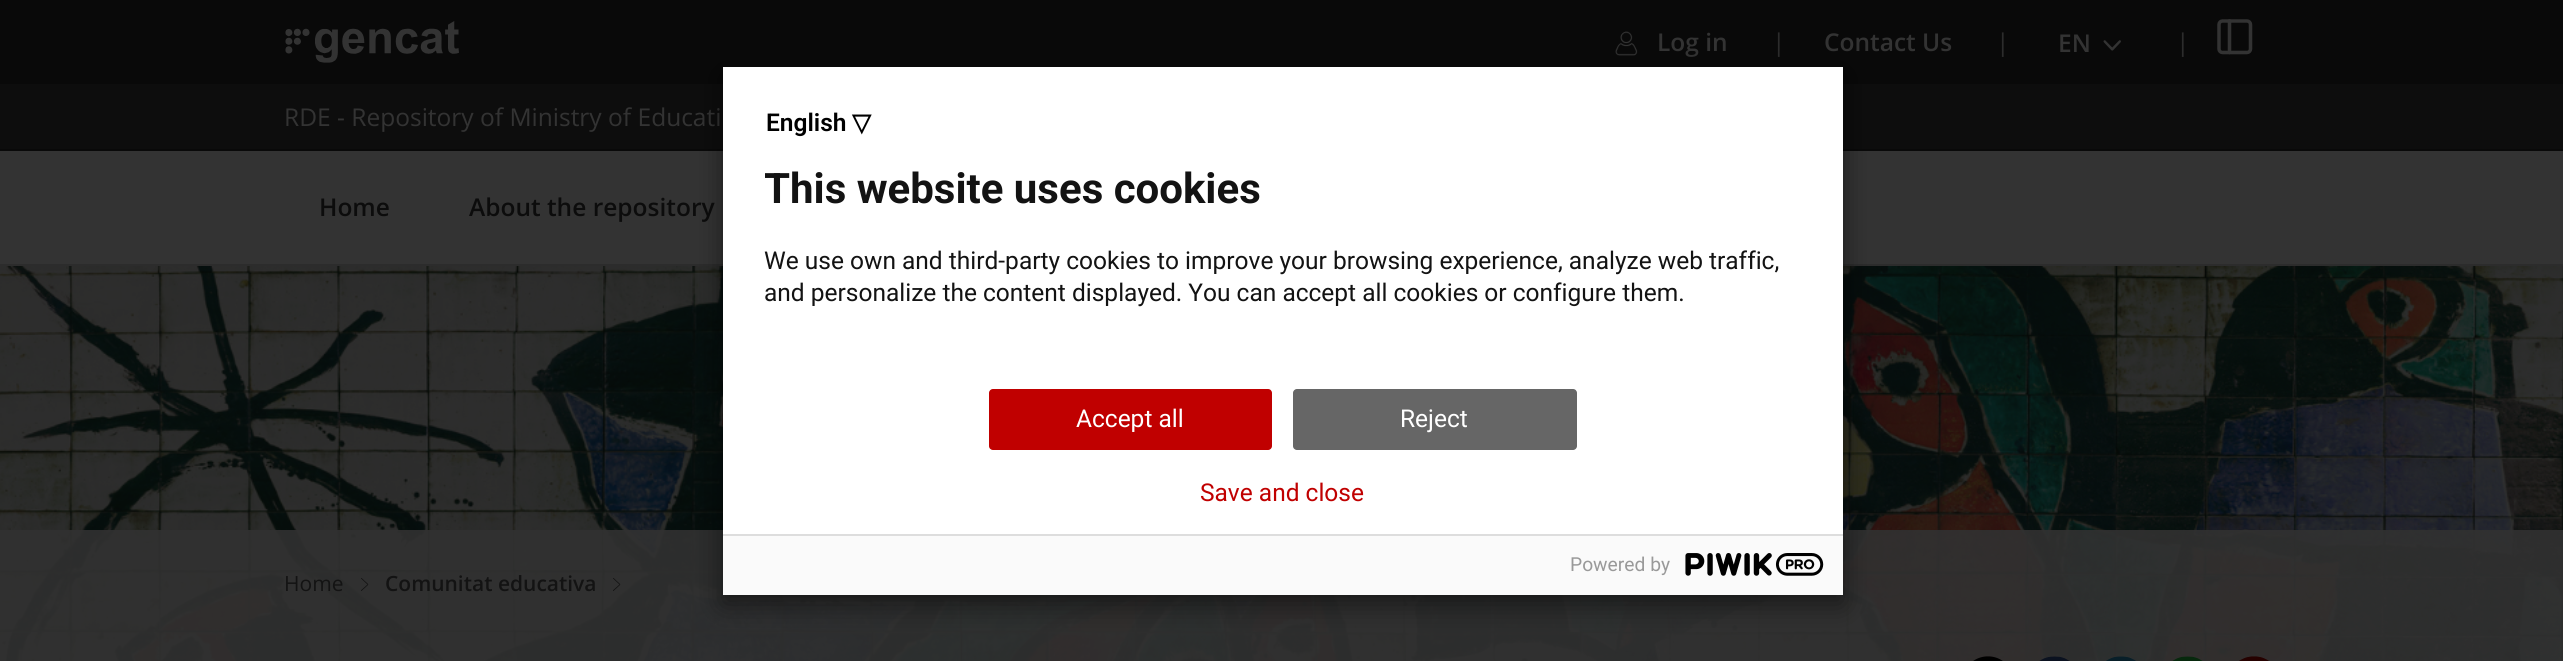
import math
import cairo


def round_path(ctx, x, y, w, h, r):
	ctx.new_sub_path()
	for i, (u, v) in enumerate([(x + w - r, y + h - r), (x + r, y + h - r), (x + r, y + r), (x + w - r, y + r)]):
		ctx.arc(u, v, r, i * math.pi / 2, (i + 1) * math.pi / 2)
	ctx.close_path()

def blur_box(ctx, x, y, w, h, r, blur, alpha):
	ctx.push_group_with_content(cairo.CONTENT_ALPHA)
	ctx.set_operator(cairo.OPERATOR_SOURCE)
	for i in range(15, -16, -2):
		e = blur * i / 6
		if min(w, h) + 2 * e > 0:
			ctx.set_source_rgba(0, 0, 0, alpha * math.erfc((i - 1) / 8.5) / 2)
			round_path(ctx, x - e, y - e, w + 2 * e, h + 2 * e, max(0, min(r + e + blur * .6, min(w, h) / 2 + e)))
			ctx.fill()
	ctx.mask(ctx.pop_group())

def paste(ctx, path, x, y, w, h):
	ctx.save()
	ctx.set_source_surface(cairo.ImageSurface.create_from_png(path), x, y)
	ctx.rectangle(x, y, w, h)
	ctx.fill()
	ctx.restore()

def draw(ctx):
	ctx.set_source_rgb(1, 1, 1)
	ctx.paint()
	ctx.set_source_rgb(0.039, 0.039, 0.039)
	ctx.rectangle(0, 149, 2563, 2)
	ctx.fill()
	ctx.rectangle(0, 0, 2563, 84)
	ctx.fill()
	paste(ctx, 'media/1.png', 285, 21, 174, 42)
	paste(ctx, 'media/2.png', 1615, 31, 23, 25)
	ctx.select_font_face('Open Sans SemiBold')
	ctx.set_font_size(24.5)
	ctx.set_source_rgb(0.2, 0.2, 0.2)
	ctx.move_to(1657, 51)
	ctx.show_text('Log in')
	ctx.select_font_face('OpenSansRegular')
	ctx.set_source_rgb(0.173, 0.173, 0.173)
	ctx.move_to(1772, 51)
	ctx.show_text('|')
	ctx.select_font_face('Open Sans SemiBold')
	ctx.set_source_rgb(0.2, 0.2, 0.2)
	ctx.move_to(1824, 51)
	ctx.show_text('Contact Us')
	ctx.select_font_face('OpenSansRegular')
	ctx.set_source_rgb(0.173, 0.173, 0.173)
	ctx.move_to(1996, 51)
	ctx.show_text('|')
	ctx.select_font_face('Open Sans SemiBold')
	ctx.set_source_rgb(0.2, 0.2, 0.2)
	ctx.move_to(2058, 52)
	ctx.show_text('EN')
	paste(ctx, 'media/3.png', 2103, 40, 18, 11)
	ctx.select_font_face('OpenSansRegular')
	ctx.set_source_rgb(0.173, 0.173, 0.173)
	ctx.move_to(2176, 51)
	ctx.show_text('|')
	paste(ctx, 'media/4.png', 2217, 19, 36, 36)
	ctx.set_source_rgb(0.051, 0.051, 0.051)
	ctx.rectangle(0, 84, 2563, 65)
	ctx.fill()
	ctx.set_source_rgb(0.2, 0.2, 0.2)
	ctx.move_to(284, 126)
	ctx.show_text('RDE - Repository of Ministry of Educati')
	ctx.rectangle(0, 151, 2563, 113)
	ctx.fill()
	ctx.set_source_rgb(0.173, 0.173, 0.173)
	ctx.rectangle(0, 264, 2563, 2)
	ctx.fill()
	ctx.select_font_face('Open Sans SemiBold')
	ctx.set_source_rgb(0.047, 0.047, 0.047)
	ctx.move_to(319, 216)
	ctx.show_text('Home')
	ctx.move_to(469, 216)
	ctx.show_text('About the repository')
	paste(ctx, 'media/6.png', 0, 266, 2563, 395)
	ctx.set_source_rgba(0.192, 0.192, 0.192, 0.9)
	ctx.rectangle(0, 530, 2563, 131)
	ctx.fill()
	ctx.set_source_rgb(0, 0, 0)
	blur_box(ctx, 723, 75, 1120, 529, 0, 13, 0.5)
	ctx.set_source_rgb(1, 1, 1)
	ctx.rectangle(723, 67, 1120, 467)
	ctx.fill()
	ctx.select_font_face('Roboto SemiBold')
	ctx.set_source_rgb(0, 0, 0)
	ctx.move_to(766, 131)
	ctx.show_text('English')
	ctx.select_font_face('DejaVu Sans', cairo.FONT_SLANT_NORMAL, cairo.FONT_WEIGHT_BOLD)
	ctx.move_to(852, 131)
	ctx.show_text('▽')
	ctx.save()
	ctx.rectangle(765, 109, 1036, 238)
	ctx.clip()
	ctx.select_font_face('Roboto', cairo.FONT_SLANT_NORMAL, cairo.FONT_WEIGHT_BOLD)
	ctx.set_font_size(42)
	ctx.set_source_rgb(0.078, 0.078, 0.078)
	ctx.move_to(764, 203)
	ctx.show_text('This website uses cookies')
	ctx.restore()
	ctx.select_font_face('Roboto')
	ctx.set_source_rgb(0.078, 0.078, 0.078)
	ctx.move_to(764, 269)
	ctx.show_text('We use own and third-party cookies to improve your browsing experience, analyze web traffic,')
	ctx.move_to(764, 301)
	ctx.show_text('and personalize the content displayed. You can accept all cookies or configure them.')
	ctx.set_source_rgb(0.753, 0, 0)
	round_path(ctx, 989, 389, 283, 61, 4)
	ctx.fill()
	ctx.set_source_rgb(1, 1, 1)
	ctx.move_to(1076, 427)
	ctx.show_text('Accept all')
	ctx.set_source_rgb(0.4, 0.4, 0.4)
	round_path(ctx, 1293, 389, 284, 61, 4)
	ctx.fill()
	ctx.set_source_rgb(1, 1, 1)
	ctx.move_to(1400, 427)
	ctx.show_text('Reject')
	ctx.set_source_rgb(0.753, 0, 0)
	ctx.move_to(1200, 501)
	ctx.show_text('Save and close')
	ctx.set_source_rgb(0.98, 0.98, 0.98)
	ctx.rectangle(723, 536, 1120, 59)
	ctx.fill()
	ctx.set_source_rgb(0.867, 0.867, 0.867)
	ctx.rectangle(723, 534, 1120, 2)
	ctx.fill()
	ctx.set_font_size(19.25)
	ctx.set_source_rgb(0.6, 0.6, 0.6)
	ctx.move_to(1570, 571)
	ctx.show_text('Powered by')
	paste(ctx, 'media/5.png', 1685, 553, 139, 23)
	ctx.select_font_face('OpenSansRegular')
	ctx.set_font_size(21)
	ctx.set_source_rgb(0.078, 0.078, 0.078)
	ctx.move_to(284, 591)
	ctx.show_text('Home')
	paste(ctx, 'media/7.png', 361, 578, 8, 13)
	ctx.select_font_face('Open Sans SemiBold')
	ctx.move_to(385, 591)
	ctx.show_text('Comunitat educativa')
	paste(ctx, 'media/8.png', 613, 578, 8, 13)
	paste(ctx, 'media/9.png', 1973, 656, 30, 5)
	paste(ctx, 'media/10.png', 2039, 656, 31, 5)
	paste(ctx, 'media/11.png', 2106, 656, 30, 5)
	paste(ctx, 'media/12.png', 2172, 656, 31, 5)
	paste(ctx, 'media/13.png', 2239, 656, 30, 5)


surface = cairo.ImageSurface(cairo.FORMAT_RGB24, 2563, 661)
ctx = cairo.Context(surface)
options = cairo.FontOptions()
options.set_hint_metrics(cairo.HINT_METRICS_OFF)
options.set_hint_style(cairo.HINT_STYLE_NONE)
ctx.set_font_options(options)
ctx.set_miter_limit(4)
draw(ctx)
surface.write_to_png('image.png')
